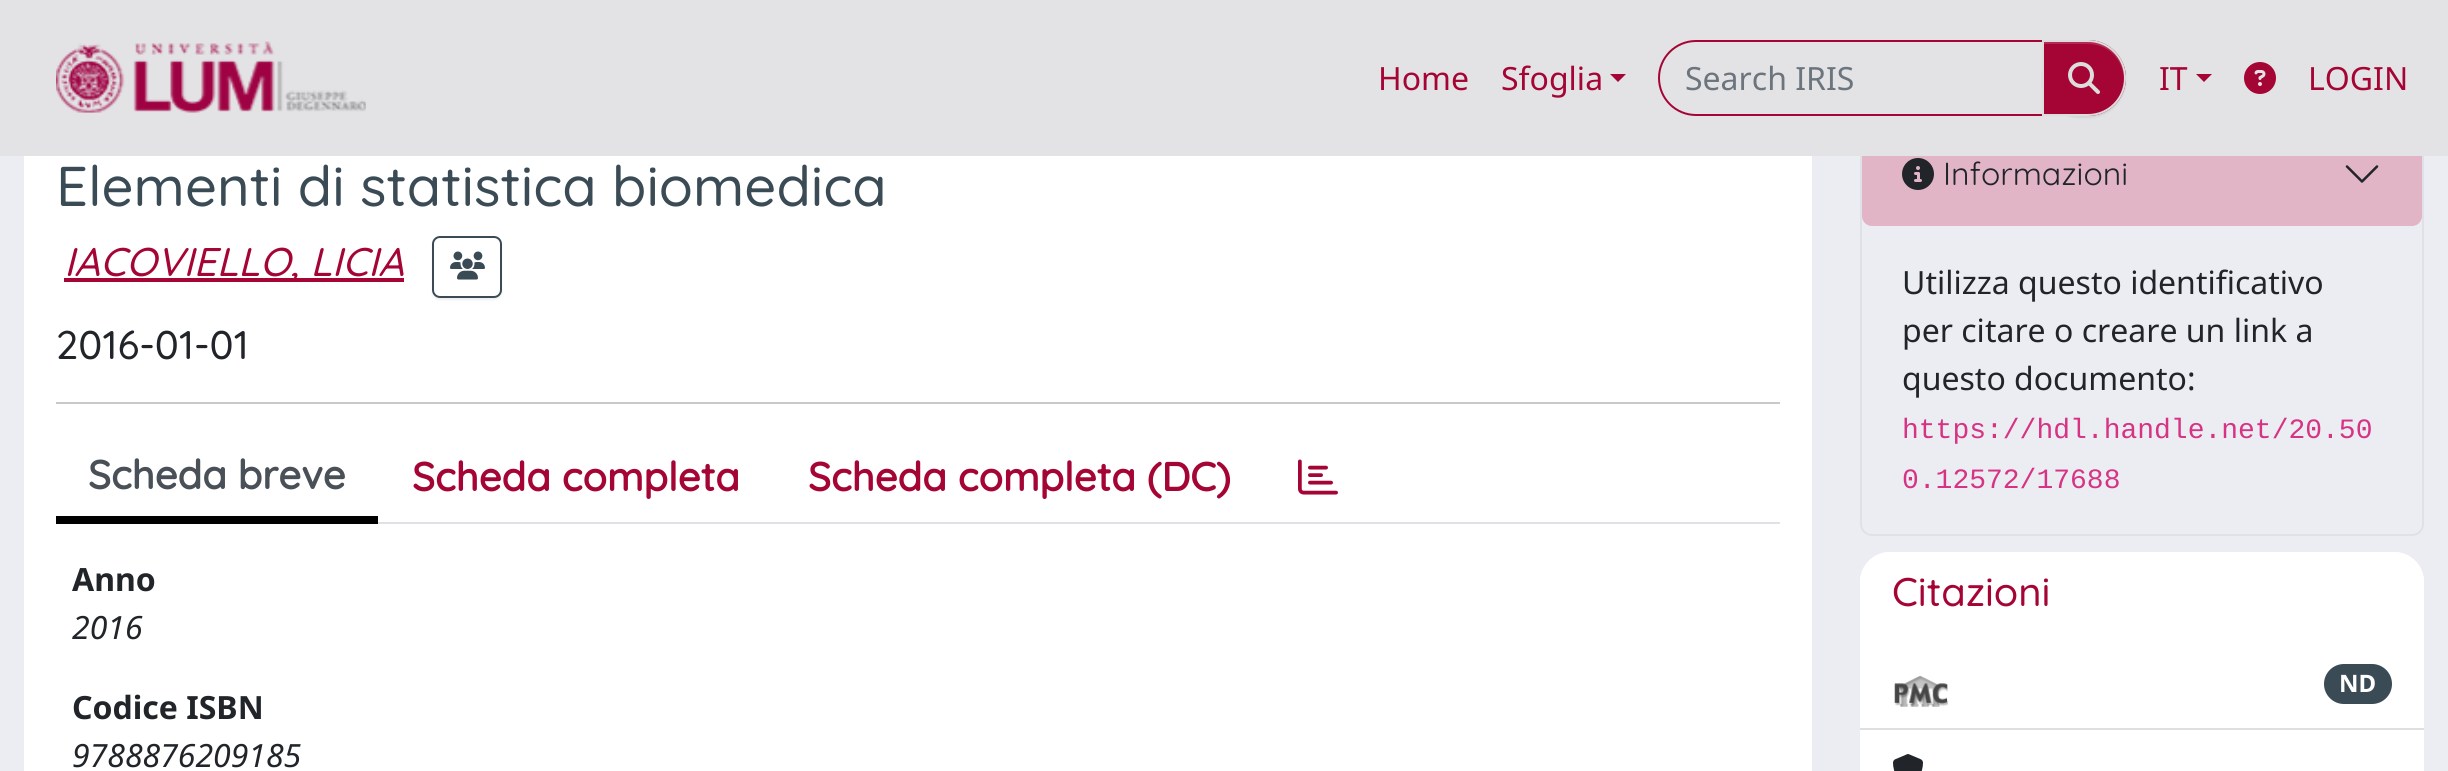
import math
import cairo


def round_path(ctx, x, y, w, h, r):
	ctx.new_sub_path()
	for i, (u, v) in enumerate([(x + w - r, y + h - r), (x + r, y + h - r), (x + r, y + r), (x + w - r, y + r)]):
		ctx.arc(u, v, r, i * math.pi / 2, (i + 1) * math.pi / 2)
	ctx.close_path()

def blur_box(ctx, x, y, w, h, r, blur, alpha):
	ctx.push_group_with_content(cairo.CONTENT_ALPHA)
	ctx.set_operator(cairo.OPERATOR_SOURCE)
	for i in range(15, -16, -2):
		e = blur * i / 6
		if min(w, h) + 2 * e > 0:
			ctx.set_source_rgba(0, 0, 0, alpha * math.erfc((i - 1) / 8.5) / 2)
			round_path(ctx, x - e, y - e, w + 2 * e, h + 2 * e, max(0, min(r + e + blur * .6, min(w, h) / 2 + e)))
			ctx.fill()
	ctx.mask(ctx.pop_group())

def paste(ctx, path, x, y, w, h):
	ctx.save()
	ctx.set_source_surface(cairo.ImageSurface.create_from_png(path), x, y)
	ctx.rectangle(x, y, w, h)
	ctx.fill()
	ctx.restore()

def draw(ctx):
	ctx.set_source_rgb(0.925, 0.929, 0.949)
	ctx.paint()
	round_path(ctx, 1861, 121, 562, 414, 11)
	ctx.set_source_rgb(0.871, 0.886, 0.902)
	ctx.stroke()
	ctx.set_source_rgba(0.761, 0.039, 0.267, 0.25)
	round_path(ctx, 1862, 122, 560, 104, 10)
	ctx.fill()
	ctx.set_source_rgb(0.89, 0.89, 0.898)
	ctx.rectangle(0, 0, 2448, 156)
	ctx.fill()
	paste(ctx, 'media/1.png', 56, 41, 310, 72)
	ctx.select_font_face('Noto Sans')
	ctx.set_font_size(32)
	ctx.set_source_rgb(0.647, 0.02, 0.208)
	ctx.move_to(1378, 90)
	ctx.show_text('Home')
	ctx.move_to(1501, 90)
	ctx.show_text('Sfoglia')
	ctx.new_path()
	ctx.move_to(1610, 74)
	ctx.line_to(1626, 74)
	ctx.line_to(1618, 82)
	ctx.close_path()
	ctx.fill()
	ctx.new_path()
	ctx.move_to(1696, 41)
	ctx.line_to(2043, 41)
	ctx.line_to(2043, 115)
	ctx.line_to(1696, 115)
	ctx.curve_to(1675.5, 115, 1659, 98.5, 1659, 78)
	ctx.curve_to(1659, 57.5, 1675.5, 41, 1696, 41)
	ctx.close_path()
	ctx.stroke()
	ctx.set_source_rgb(0.424, 0.459, 0.49)
	ctx.move_to(1685, 90)
	ctx.show_text('Search IRIS')
	ctx.set_source_rgb(0, 0, 0)
	blur_box(ctx, 2042, 42, 84, 76, 38, 1, 0.07)
	ctx.set_source_rgb(0.647, 0.02, 0.208)
	ctx.new_path()
	ctx.move_to(2042, 40)
	ctx.line_to(2088, 40)
	ctx.curve_to(2109, 40, 2126, 57, 2126, 78)
	ctx.curve_to(2126, 99, 2109, 116, 2088, 116)
	ctx.line_to(2042, 116)
	ctx.close_path()
	ctx.fill()
	ctx.set_source_rgb(0.702, 0.169, 0.325)
	ctx.new_path()
	ctx.move_to(2044, 44)
	ctx.line_to(2088, 44)
	ctx.curve_to(2108, 44, 2123, 59, 2124, 79)
	ctx.line_to(2124, 78)
	ctx.curve_to(2124, 58, 2108, 42, 2088, 42)
	ctx.line_to(2044, 42)
	ctx.close_path()
	ctx.fill()
	ctx.new_path()
	ctx.move_to(2043, 41)
	ctx.line_to(2088, 41)
	ctx.curve_to(2108.5, 41, 2125, 57.5, 2125, 78)
	ctx.curve_to(2125, 98.5, 2108.5, 115, 2088, 115)
	ctx.line_to(2043, 115)
	ctx.close_path()
	ctx.set_source_rgb(0.867, 0.867, 0.867)
	ctx.stroke()
	paste(ctx, 'media/2.png', 2068, 62, 32, 32)
	ctx.set_source_rgb(0.647, 0.02, 0.208)
	ctx.move_to(2159, 90)
	ctx.show_text('IT')
	ctx.new_path()
	ctx.move_to(2196, 74)
	ctx.line_to(2212, 74)
	ctx.line_to(2204, 82)
	ctx.close_path()
	ctx.fill()
	paste(ctx, 'media/3.png', 2244, 62, 32, 32)
	ctx.move_to(2308, 90)
	ctx.show_text('LOGIN')
	ctx.set_source_rgb(1, 1, 1)
	ctx.rectangle(24, 156, 1788, 615)
	ctx.fill()
	ctx.select_font_face('Quicksand Medium')
	ctx.set_font_size(56)
	ctx.set_source_rgb(0.227, 0.294, 0.333)
	ctx.move_to(56, 206)
	ctx.show_text('Elementi di statistica biomedica')
	ctx.set_source_rgb(0.647, 0.02, 0.208)
	ctx.rectangle(64, 278, 340, 4)
	ctx.fill()
	ctx.select_font_face('Quicksand Medium', cairo.FONT_SLANT_ITALIC)
	ctx.set_font_size(40)
	ctx.move_to(64, 276)
	ctx.show_text('IACOVIELLO, LICIA')
	ctx.save()
	ctx.set_fill_rule(cairo.FILL_RULE_EVEN_ODD)
	ctx.new_path()
	ctx.move_to(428, 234)
	ctx.line_to(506, 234)
	ctx.line_to(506, 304)
	ctx.line_to(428, 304)
	ctx.close_path()
	ctx.move_to(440, 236)
	ctx.line_to(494, 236)
	ctx.curve_to(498.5, 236, 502, 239.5, 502, 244)
	ctx.line_to(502, 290)
	ctx.curve_to(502, 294.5, 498.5, 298, 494, 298)
	ctx.line_to(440, 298)
	ctx.curve_to(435.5, 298, 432, 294.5, 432, 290)
	ctx.line_to(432, 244)
	ctx.curve_to(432, 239.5, 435.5, 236, 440, 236)
	ctx.close_path()
	ctx.clip()
	ctx.set_source_rgb(0, 0, 0)
	blur_box(ctx, 432, 238, 70, 62, 8, 1, 0.07)
	ctx.restore()
	round_path(ctx, 433, 237, 68, 60, 7)
	ctx.set_source_rgb(0.227, 0.294, 0.333)
	ctx.stroke()
	paste(ctx, 'media/4.png', 450, 251, 35, 29)
	ctx.select_font_face('Quicksand Medium')
	ctx.set_source_rgb(0.129, 0.145, 0.161)
	ctx.move_to(56, 359)
	ctx.show_text('2016-01-01')
	ctx.set_source_rgb(0.784, 0.788, 0.792)
	ctx.rectangle(56, 402, 1724, 2)
	ctx.fill()
	ctx.set_source_rgb(0.871, 0.886, 0.902)
	ctx.rectangle(378, 522, 1402, 2)
	ctx.fill()
	ctx.set_source_rgb(0, 0, 0)
	ctx.rectangle(56, 516, 322, 8)
	ctx.fill()
	ctx.select_font_face('Quicksand', cairo.FONT_SLANT_NORMAL, cairo.FONT_WEIGHT_BOLD)
	ctx.set_source_rgb(0.286, 0.314, 0.341)
	ctx.move_to(88, 489)
	ctx.show_text('Scheda breve')
	ctx.set_source_rgb(0.647, 0.02, 0.208)
	ctx.move_to(412, 491)
	ctx.show_text('Scheda completa')
	ctx.move_to(808, 491)
	ctx.show_text('Scheda completa (DC)')
	paste(ctx, 'media/5.png', 1298, 459, 40, 36)
	ctx.select_font_face('Noto Sans', cairo.FONT_SLANT_NORMAL, cairo.FONT_WEIGHT_BOLD)
	ctx.set_font_size(32)
	ctx.set_source_rgb(0.129, 0.145, 0.161)
	ctx.move_to(72, 591)
	ctx.show_text('Anno')
	ctx.select_font_face('Noto Sans', cairo.FONT_SLANT_ITALIC)
	ctx.move_to(72, 639)
	ctx.show_text('2016')
	ctx.select_font_face('Noto Sans', cairo.FONT_SLANT_NORMAL, cairo.FONT_WEIGHT_BOLD)
	ctx.move_to(72, 719)
	ctx.show_text('Codice ISBN')
	ctx.select_font_face('Noto Sans', cairo.FONT_SLANT_ITALIC)
	ctx.move_to(72, 767)
	ctx.show_text('9788876209185')
	paste(ctx, 'media/6.png', 1902, 158, 32, 32)
	ctx.select_font_face('Quicksand')
	ctx.move_to(1943, 185)
	ctx.show_text('Informazioni')
	paste(ctx, 'media/7.png', 2345, 165, 34, 18)
	ctx.select_font_face('Noto Sans')
	for x, y, s in [
		(1902, 294, 'Utilizza questo identificativo'),
		(1902, 342, 'per citare o creare un link a'),
		(1902, 390, 'questo documento:'),
	]:
		ctx.move_to(x, y)
		ctx.show_text(s)
	ctx.select_font_face('Liberation Mono')
	ctx.set_font_size(28)
	ctx.set_source_rgb(0.839, 0.2, 0.518)
	ctx.move_to(1902, 438)
	ctx.show_text('https://hdl.handle.net/20.50')
	ctx.move_to(1902, 488)
	ctx.show_text('0.12572/17688')
	ctx.set_source_rgb(1, 1, 1)
	round_path(ctx, 1860, 552, 564, 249, 30)
	ctx.fill()
	ctx.new_path()
	ctx.move_to(1890, 552)
	ctx.line_to(2394, 552)
	ctx.curve_to(2410.5, 552, 2424, 565.5, 2424, 582)
	ctx.line_to(2424, 648)
	ctx.line_to(1860, 648)
	ctx.line_to(1860, 582)
	ctx.curve_to(1860, 565.5, 1873.5, 552, 1890, 552)
	ctx.close_path()
	ctx.fill()
	ctx.select_font_face('Quicksand Medium')
	ctx.set_font_size(40)
	ctx.set_source_rgb(0.647, 0.02, 0.208)
	ctx.move_to(1892, 606)
	ctx.show_text('Citazioni')
	ctx.set_source_rgb(0.875, 0.875, 0.875)
	ctx.rectangle(1860, 728, 564, 2)
	ctx.fill()
	paste(ctx, 'media/8.png', 1894, 675, 54, 32)
	ctx.set_source_rgb(0.227, 0.294, 0.333)
	round_path(ctx, 2324, 664, 68, 40, 20)
	ctx.fill()
	ctx.select_font_face('Noto Sans', cairo.FONT_SLANT_NORMAL, cairo.FONT_WEIGHT_BOLD)
	ctx.set_font_size(24)
	ctx.set_source_rgb(1, 1, 1)
	ctx.move_to(2339, 692)
	ctx.show_text('ND')
	paste(ctx, 'media/9.png', 1893, 754, 30, 17)


surface = cairo.ImageSurface(cairo.FORMAT_RGB24, 2448, 771)
ctx = cairo.Context(surface)
options = cairo.FontOptions()
options.set_hint_metrics(cairo.HINT_METRICS_OFF)
options.set_hint_style(cairo.HINT_STYLE_NONE)
ctx.set_font_options(options)
ctx.set_miter_limit(4)
draw(ctx)
surface.write_to_png('image.png')
